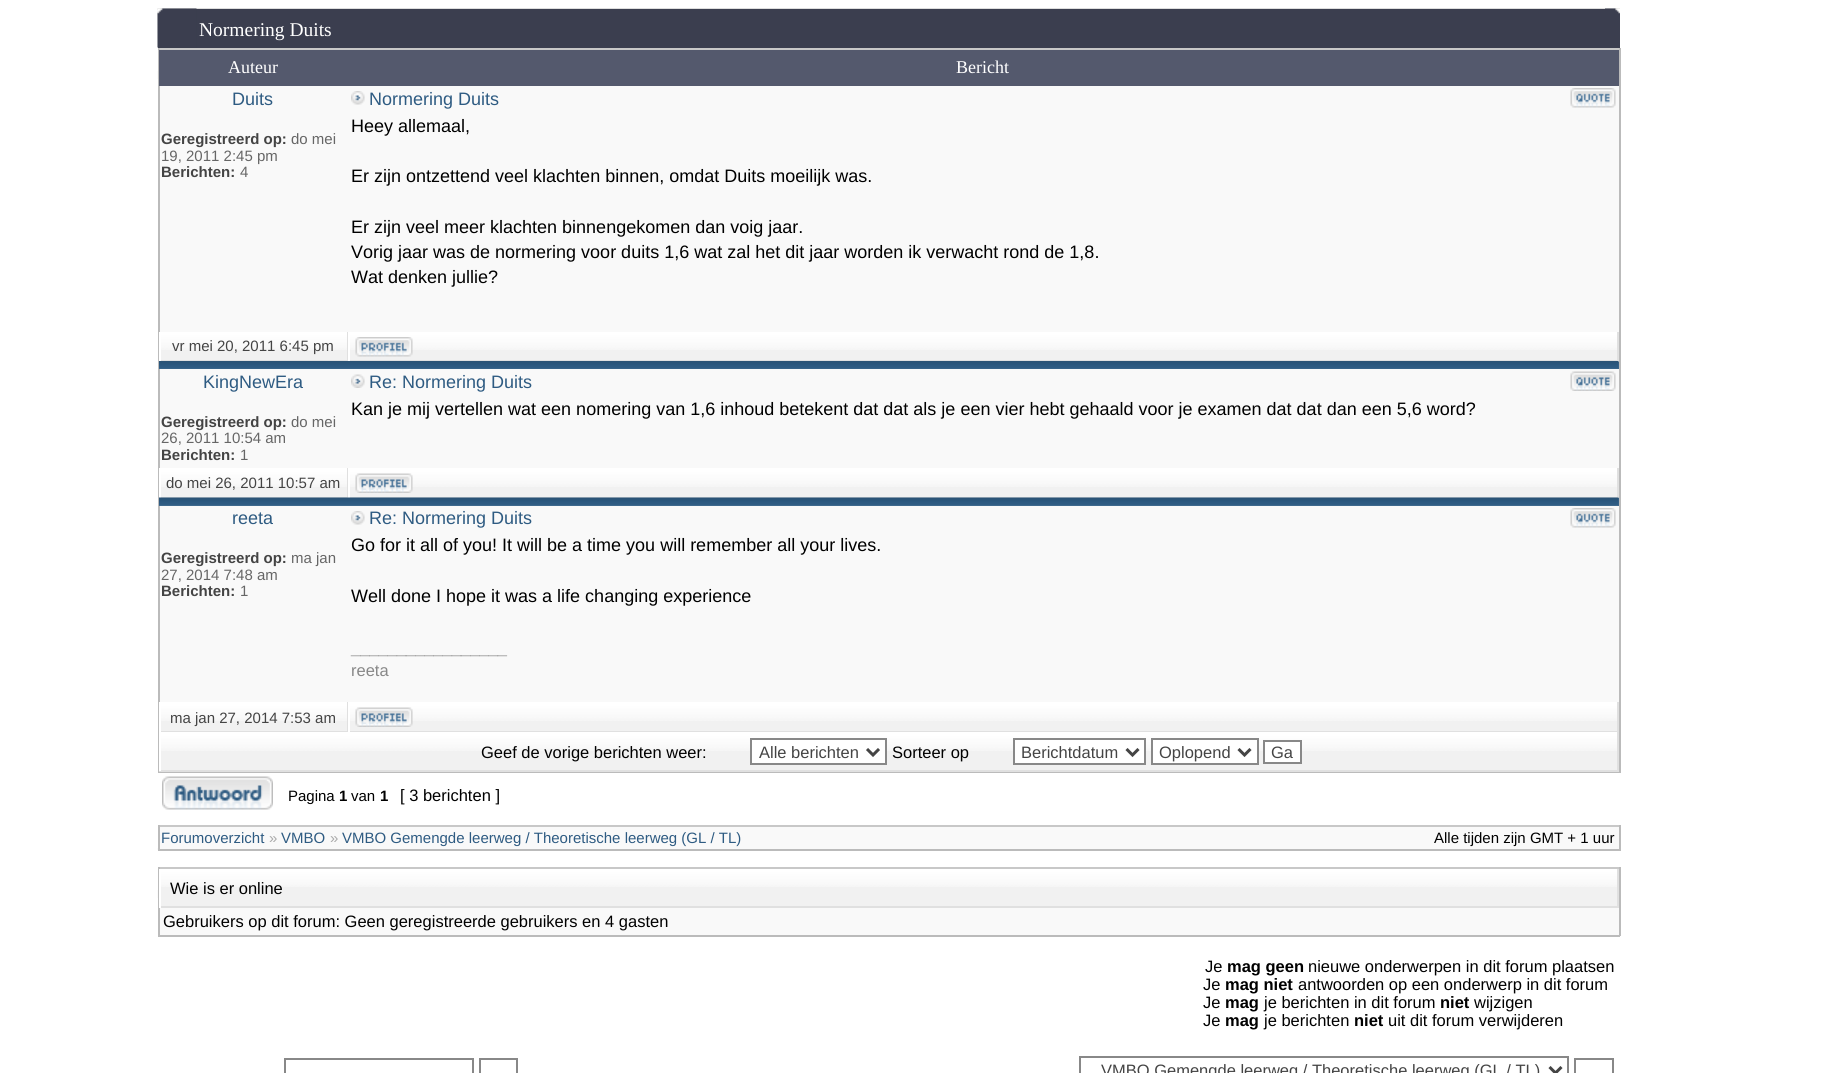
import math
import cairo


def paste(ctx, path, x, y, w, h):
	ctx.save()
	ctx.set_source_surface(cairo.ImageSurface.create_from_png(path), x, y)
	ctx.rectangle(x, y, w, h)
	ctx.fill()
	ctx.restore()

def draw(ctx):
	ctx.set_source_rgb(1, 1, 1)
	ctx.paint()
	paste(ctx, 'media/1.png', 157, 8, 1463, 40)
	ctx.set_source_rgb(0.231, 0.243, 0.31)
	ctx.rectangle(158, 9, 1462, 39)
	ctx.fill()
	paste(ctx, 'media/2.png', 157, 8, 40, 40)
	paste(ctx, 'media/3.png', 1605, 8, 15, 6)
	ctx.select_font_face('Liberation Serif')
	ctx.set_font_size(19.5)
	ctx.set_source_rgb(1, 1, 1)
	ctx.move_to(199, 36)
	ctx.show_text('Normering Duits')
	ctx.set_source_rgb(0.973, 0.973, 0.973)
	ctx.rectangle(160, 86, 1459, 616)
	ctx.fill()
	ctx.set_source_rgb(0.984, 0.984, 0.984)
	ctx.rectangle(157, 71, 1, 8)
	ctx.fill()
	ctx.set_source_rgb(0.784, 0.784, 0.784)
	ctx.rectangle(158, 48, 1462, 2)
	ctx.fill()
	ctx.set_source_rgb(0.733, 0.733, 0.733)
	ctx.rectangle(1619, 48, 2, 725)
	ctx.rectangle(158, 771, 1462, 2)
	ctx.rectangle(158, 48, 2, 725)
	ctx.fill()
	ctx.set_source_rgb(0.329, 0.349, 0.427)
	ctx.rectangle(159, 50, 1460, 36)
	ctx.fill()
	ctx.set_font_size(18)
	ctx.set_source_rgb(1, 1, 1)
	ctx.move_to(228, 73)
	ctx.show_text('Auteur')
	ctx.move_to(956, 73)
	ctx.show_text('Bericht')
	ctx.select_font_face('Liberation Sans')
	ctx.set_source_rgb(0.18, 0.357, 0.51)
	ctx.move_to(232, 105)
	ctx.show_text('Duits')
	ctx.select_font_face('Liberation Sans', cairo.FONT_SLANT_NORMAL, cairo.FONT_WEIGHT_BOLD)
	ctx.set_font_size(15)
	ctx.set_source_rgb(0.267, 0.267, 0.267)
	ctx.move_to(161, 144)
	ctx.show_text('Geregistreerd op:')
	ctx.select_font_face('Liberation Sans')
	ctx.set_source_rgb(0.4, 0.4, 0.4)
	ctx.move_to(291, 144)
	ctx.show_text('do mei')
	ctx.move_to(161, 161)
	ctx.show_text('19, 2011 2:45 pm')
	ctx.select_font_face('Liberation Sans', cairo.FONT_SLANT_NORMAL, cairo.FONT_WEIGHT_BOLD)
	ctx.set_source_rgb(0.267, 0.267, 0.267)
	ctx.move_to(161, 177)
	ctx.show_text('Berichten:')
	ctx.select_font_face('Liberation Sans')
	ctx.set_source_rgb(0.4, 0.4, 0.4)
	ctx.move_to(240, 177)
	ctx.show_text('4')
	paste(ctx, 'media/4.png', 351, 91, 14, 14)
	ctx.set_font_size(18)
	ctx.set_source_rgb(0.18, 0.357, 0.51)
	ctx.move_to(369, 105)
	ctx.show_text('Normering Duits')
	paste(ctx, 'media/5.png', 1570, 88, 46, 20)
	ctx.set_source_rgb(0, 0, 0)
	for x, y, s in [
		(351, 132, 'Heey allemaal,'),
		(351, 182, 'Er zijn ontzettend veel klachten binnen, omdat Duits moeilijk was.'),
		(351, 233, 'Er zijn veel meer klachten binnengekomen dan voig jaar.'),
		(351, 258, 'Vorig jaar was de normering voor duits 1,6 wat zal het dit jaar worden ik verwacht rond de 1,8.'),
		(351, 283, 'Wat denken jullie?'),
	]:
		ctx.move_to(x, y)
		ctx.show_text(s)
	ctx.set_source_rgb(0.945, 0.945, 0.945)
	ctx.rectangle(161, 350, 186, 10)
	ctx.fill()
	paste(ctx, 'media/6.png', 161, 334, 186, 16)
	ctx.set_source_rgb(1, 1, 1)
	ctx.rectangle(159, 332, 1460, 2)
	ctx.fill()
	ctx.set_source_rgb(0.878, 0.878, 0.878)
	ctx.rectangle(347, 332, 1, 30)
	ctx.rectangle(159, 360, 189, 1)
	ctx.fill()
	ctx.set_source_rgb(1, 1, 1)
	ctx.rectangle(159, 332, 2, 30)
	ctx.fill()
	ctx.set_font_size(15)
	ctx.set_source_rgb(0.267, 0.267, 0.267)
	ctx.move_to(172, 351)
	ctx.show_text('vr mei 20, 2011 6:45 pm')
	ctx.set_source_rgb(0.945, 0.945, 0.945)
	ctx.rectangle(350, 350, 1267, 10)
	ctx.fill()
	paste(ctx, 'media/7.png', 350, 334, 1267, 16)
	ctx.set_source_rgb(0.878, 0.878, 0.878)
	ctx.rectangle(1617, 332, 2, 30)
	ctx.rectangle(348, 360, 1271, 2)
	ctx.fill()
	ctx.set_source_rgb(1, 1, 1)
	ctx.rectangle(348, 332, 2, 30)
	ctx.fill()
	paste(ctx, 'media/8.png', 355, 337, 58, 20)
	ctx.set_source_rgb(0.243, 0.412, 0.553)
	ctx.rectangle(159, 362, 1460, 7)
	ctx.fill()
	paste(ctx, 'media/9.png', 159, 361, 1460, 8)
	ctx.set_font_size(18)
	ctx.set_source_rgb(0.18, 0.357, 0.51)
	ctx.move_to(203, 388)
	ctx.show_text('KingNewEra')
	ctx.select_font_face('Liberation Sans', cairo.FONT_SLANT_NORMAL, cairo.FONT_WEIGHT_BOLD)
	ctx.set_font_size(15)
	ctx.set_source_rgb(0.267, 0.267, 0.267)
	ctx.move_to(161, 427)
	ctx.show_text('Geregistreerd op:')
	ctx.select_font_face('Liberation Sans')
	ctx.set_source_rgb(0.4, 0.4, 0.4)
	ctx.move_to(291, 427)
	ctx.show_text('do mei')
	ctx.move_to(161, 443)
	ctx.show_text('26, 2011 10:54 am')
	ctx.select_font_face('Liberation Sans', cairo.FONT_SLANT_NORMAL, cairo.FONT_WEIGHT_BOLD)
	ctx.set_source_rgb(0.267, 0.267, 0.267)
	ctx.move_to(161, 460)
	ctx.show_text('Berichten:')
	ctx.select_font_face('Liberation Sans')
	ctx.set_source_rgb(0.4, 0.4, 0.4)
	ctx.move_to(240, 460)
	ctx.show_text('1')
	paste(ctx, 'media/10.png', 351, 374, 14, 14)
	ctx.set_font_size(18)
	ctx.set_source_rgb(0.18, 0.357, 0.51)
	ctx.move_to(369, 388)
	ctx.show_text('Re: Normering Duits')
	paste(ctx, 'media/11.png', 1570, 371, 46, 20)
	ctx.set_source_rgb(0, 0, 0)
	ctx.move_to(351, 415)
	ctx.show_text('Kan je mij vertellen wat een nomering van 1,6 inhoud betekent dat dat als je een vier hebt gehaald voor je examen dat dat dan een 5,6 word?')
	ctx.set_source_rgb(0.945, 0.945, 0.945)
	ctx.rectangle(161, 487, 186, 10)
	ctx.fill()
	paste(ctx, 'media/12.png', 161, 470, 186, 17)
	ctx.set_source_rgb(1, 1, 1)
	ctx.rectangle(159, 468, 1460, 2)
	ctx.fill()
	ctx.set_source_rgb(0.878, 0.878, 0.878)
	ctx.rectangle(347, 468, 1, 30)
	ctx.rectangle(159, 497, 189, 1)
	ctx.fill()
	ctx.set_source_rgb(1, 1, 1)
	ctx.rectangle(159, 468, 2, 30)
	ctx.fill()
	ctx.set_font_size(15)
	ctx.set_source_rgb(0.267, 0.267, 0.267)
	ctx.move_to(166, 488)
	ctx.show_text('do mei 26, 2011 10:57 am')
	ctx.set_source_rgb(0.945, 0.945, 0.945)
	ctx.rectangle(350, 487, 1267, 10)
	ctx.fill()
	paste(ctx, 'media/13.png', 350, 470, 1267, 17)
	ctx.set_source_rgb(0.878, 0.878, 0.878)
	ctx.rectangle(1617, 468, 2, 30)
	ctx.rectangle(348, 497, 1271, 1)
	ctx.fill()
	ctx.set_source_rgb(1, 1, 1)
	ctx.rectangle(348, 468, 2, 30)
	ctx.fill()
	paste(ctx, 'media/14.png', 355, 473, 58, 20)
	ctx.set_source_rgb(0.243, 0.412, 0.553)
	ctx.rectangle(159, 498, 1460, 8)
	ctx.fill()
	paste(ctx, 'media/15.png', 159, 497, 1460, 8)
	ctx.set_font_size(18)
	ctx.set_source_rgb(0.18, 0.357, 0.51)
	ctx.move_to(232, 524)
	ctx.show_text('reeta')
	ctx.select_font_face('Liberation Sans', cairo.FONT_SLANT_NORMAL, cairo.FONT_WEIGHT_BOLD)
	ctx.set_font_size(15)
	ctx.set_source_rgb(0.267, 0.267, 0.267)
	ctx.move_to(161, 563)
	ctx.show_text('Geregistreerd op:')
	ctx.select_font_face('Liberation Sans')
	ctx.set_source_rgb(0.4, 0.4, 0.4)
	ctx.move_to(291, 563)
	ctx.show_text('ma jan')
	ctx.move_to(161, 580)
	ctx.show_text('27, 2014 7:48 am')
	ctx.select_font_face('Liberation Sans', cairo.FONT_SLANT_NORMAL, cairo.FONT_WEIGHT_BOLD)
	ctx.set_source_rgb(0.267, 0.267, 0.267)
	ctx.move_to(161, 596)
	ctx.show_text('Berichten:')
	ctx.select_font_face('Liberation Sans')
	ctx.set_source_rgb(0.4, 0.4, 0.4)
	ctx.move_to(240, 596)
	ctx.show_text('1')
	paste(ctx, 'media/4.png', 351, 511, 14, 14)
	ctx.set_font_size(18)
	ctx.set_source_rgb(0.18, 0.357, 0.51)
	ctx.move_to(369, 524)
	ctx.show_text('Re: Normering Duits')
	paste(ctx, 'media/5.png', 1570, 508, 46, 20)
	ctx.set_source_rgb(0, 0, 0)
	ctx.move_to(351, 551)
	ctx.show_text('Go for it all of you! It will be a time you will remember all your lives.')
	ctx.move_to(351, 602)
	ctx.show_text('Well done I hope it was a life changing experience')
	ctx.set_font_size(16.5)
	ctx.set_source_rgb(0.667, 0.667, 0.667)
	ctx.move_to(351, 653)
	ctx.show_text('_________________')
	ctx.set_source_rgb(0.533, 0.533, 0.533)
	ctx.move_to(351, 676)
	ctx.show_text('reeta')
	ctx.set_source_rgb(0.945, 0.945, 0.945)
	ctx.rectangle(161, 721, 186, 10)
	ctx.fill()
	paste(ctx, 'media/12.png', 161, 704, 186, 17)
	ctx.set_source_rgb(1, 1, 1)
	ctx.rectangle(159, 702, 1, 2)
	ctx.fill()
	ctx.set_source_rgb(0.878, 0.878, 0.878)
	ctx.rectangle(347, 702, 1, 30)
	ctx.rectangle(159, 731, 189, 1)
	ctx.fill()
	ctx.set_source_rgb(1, 1, 1)
	ctx.rectangle(159, 702, 2, 30)
	ctx.fill()
	ctx.set_font_size(15)
	ctx.set_source_rgb(0.267, 0.267, 0.267)
	ctx.move_to(170, 723)
	ctx.show_text('ma jan 27, 2014 7:53 am')
	ctx.set_source_rgb(0.945, 0.945, 0.945)
	ctx.rectangle(350, 721, 1267, 10)
	ctx.fill()
	paste(ctx, 'media/13.png', 350, 704, 1267, 17)
	ctx.set_source_rgb(0.878, 0.878, 0.878)
	ctx.rectangle(1617, 702, 2, 69)
	ctx.rectangle(348, 731, 1271, 1)
	ctx.fill()
	ctx.set_source_rgb(1, 1, 1)
	ctx.rectangle(348, 731, 2, 1)
	ctx.fill()
	paste(ctx, 'media/14.png', 355, 707, 58, 20)
	ctx.set_source_rgb(0.945, 0.945, 0.945)
	ctx.rectangle(161, 751, 1456, 19)
	ctx.fill()
	paste(ctx, 'media/16.png', 161, 734, 1456, 17)
	ctx.set_source_rgb(1, 1, 1)
	ctx.rectangle(159, 732, 1, 2)
	ctx.fill()
	ctx.set_source_rgb(0.878, 0.878, 0.878)
	ctx.rectangle(159, 770, 1460, 2)
	ctx.fill()
	ctx.set_source_rgb(1, 1, 1)
	ctx.rectangle(159, 732, 2, 39)
	ctx.fill()
	ctx.set_font_size(16.5)
	ctx.set_source_rgb(0, 0, 0)
	ctx.move_to(481, 758)
	ctx.show_text('Geef de vorige berichten weer:')
	ctx.set_source_rgb(1, 1, 1)
	ctx.rectangle(751, 739, 135, 25)
	ctx.fill_preserve()
	ctx.set_source_rgb(0.533, 0.533, 0.533)
	ctx.stroke()
	ctx.new_path()
	ctx.move_to(867, 749)
	ctx.line_to(873, 755)
	ctx.line_to(879, 749)
	ctx.set_source_rgb(0.267, 0.267, 0.267)
	ctx.set_line_width(3)
	ctx.stroke()
	ctx.move_to(759, 758)
	ctx.show_text('Alle berichten')
	ctx.set_source_rgb(0, 0, 0)
	ctx.move_to(892, 758)
	ctx.show_text('Sorteer op')
	ctx.set_source_rgb(1, 1, 1)
	ctx.rectangle(1014, 739, 131, 25)
	ctx.fill_preserve()
	ctx.set_source_rgb(0.533, 0.533, 0.533)
	ctx.set_line_width(2)
	ctx.stroke()
	ctx.new_path()
	ctx.move_to(1126.5, 749)
	ctx.line_to(1132.5, 755)
	ctx.line_to(1138.5, 749)
	ctx.set_source_rgb(0.267, 0.267, 0.267)
	ctx.set_line_width(3)
	ctx.stroke()
	ctx.move_to(1021, 758)
	ctx.show_text('Berichtdatum')
	ctx.set_source_rgb(1, 1, 1)
	ctx.rectangle(1152, 739, 106, 25)
	ctx.fill_preserve()
	ctx.set_source_rgb(0.533, 0.533, 0.533)
	ctx.set_line_width(2)
	ctx.stroke()
	ctx.new_path()
	ctx.move_to(1238.5, 749)
	ctx.line_to(1244.5, 755)
	ctx.line_to(1250.5, 749)
	ctx.set_source_rgb(0.267, 0.267, 0.267)
	ctx.set_line_width(3)
	ctx.stroke()
	ctx.move_to(1159, 758)
	ctx.show_text('Oplopend')
	ctx.set_source_rgb(1, 1, 1)
	ctx.rectangle(1264, 741, 37, 22)
	ctx.fill_preserve()
	ctx.set_source_rgb(0.533, 0.533, 0.533)
	ctx.set_line_width(2)
	ctx.stroke()
	ctx.set_source_rgb(0.267, 0.267, 0.267)
	ctx.move_to(1271, 758)
	ctx.show_text('Ga')
	paste(ctx, 'media/17.png', 162, 776, 111, 34)
	ctx.set_font_size(15)
	ctx.set_source_rgb(0, 0, 0)
	ctx.move_to(288, 801)
	ctx.show_text('Pagina')
	ctx.select_font_face('Liberation Sans', cairo.FONT_SLANT_NORMAL, cairo.FONT_WEIGHT_BOLD)
	ctx.move_to(339, 801)
	ctx.show_text('1')
	ctx.select_font_face('Liberation Sans')
	ctx.move_to(351, 801)
	ctx.show_text('van')
	ctx.select_font_face('Liberation Sans', cairo.FONT_SLANT_NORMAL, cairo.FONT_WEIGHT_BOLD)
	ctx.move_to(380, 801)
	ctx.show_text('1')
	ctx.select_font_face('Liberation Sans')
	ctx.set_font_size(16.5)
	ctx.move_to(400, 801)
	ctx.show_text('[ 3 berichten ]')
	ctx.set_source_rgb(0.973, 0.973, 0.973)
	ctx.rectangle(160, 827, 1459, 22)
	ctx.fill()
	ctx.set_source_rgb(0.984, 0.984, 0.984)
	ctx.rectangle(157, 848, 1, 2)
	ctx.fill()
	ctx.set_source_rgb(0.784, 0.784, 0.784)
	ctx.rectangle(158, 825, 1462, 2)
	ctx.fill()
	ctx.set_source_rgb(0.733, 0.733, 0.733)
	ctx.rectangle(1619, 825, 2, 26)
	ctx.rectangle(158, 849, 1462, 2)
	ctx.rectangle(158, 825, 2, 26)
	ctx.fill()
	ctx.set_font_size(15)
	ctx.set_source_rgb(0.18, 0.357, 0.51)
	ctx.move_to(161, 843)
	ctx.show_text('Forumoverzicht')
	ctx.set_source_rgb(0.667, 0.667, 0.667)
	ctx.move_to(269, 843)
	ctx.show_text('»')
	ctx.set_source_rgb(0.18, 0.357, 0.51)
	ctx.move_to(281, 843)
	ctx.show_text('VMBO')
	ctx.set_source_rgb(0.667, 0.667, 0.667)
	ctx.move_to(330, 843)
	ctx.show_text('»')
	ctx.set_source_rgb(0.18, 0.357, 0.51)
	ctx.move_to(342, 843)
	ctx.show_text('VMBO Gemengde leerweg / Theoretische leerweg (GL / TL)')
	ctx.set_source_rgb(0, 0, 0)
	ctx.move_to(1434, 843)
	ctx.show_text('Alle tijden zijn GMT + 1 uur')
	ctx.set_source_rgb(0.973, 0.973, 0.973)
	ctx.rectangle(160, 908, 1459, 27)
	ctx.fill()
	ctx.set_source_rgb(0.984, 0.984, 0.984)
	ctx.rectangle(157, 890, 1, 8)
	ctx.fill()
	ctx.set_source_rgb(0.784, 0.784, 0.784)
	ctx.rectangle(158, 867, 1462, 2)
	ctx.fill()
	ctx.set_source_rgb(0.733, 0.733, 0.733)
	ctx.rectangle(1619, 867, 2, 69)
	ctx.rectangle(158, 935, 1462, 2)
	ctx.rectangle(158, 867, 2, 69)
	ctx.fill()
	ctx.set_source_rgb(0.945, 0.945, 0.945)
	ctx.rectangle(161, 887, 1456, 19)
	ctx.fill()
	paste(ctx, 'media/18.png', 161, 871, 1456, 16)
	ctx.set_source_rgb(1, 1, 1)
	ctx.rectangle(159, 869, 1, 2)
	ctx.fill()
	ctx.set_source_rgb(0.878, 0.878, 0.878)
	ctx.rectangle(1617, 869, 2, 39)
	ctx.rectangle(159, 906, 1460, 2)
	ctx.fill()
	ctx.set_source_rgb(1, 1, 1)
	ctx.rectangle(159, 869, 2, 39)
	ctx.fill()
	ctx.set_font_size(16.5)
	ctx.set_source_rgb(0, 0, 0)
	for x, y, s in [
		(170, 894, 'Wie is er online'),
		(163, 927, 'Gebruikers op dit forum: Geen geregistreerde gebruikers en 4 gasten'),
		(1205, 972, 'Je'),
	]:
		ctx.move_to(x, y)
		ctx.show_text(s)
	ctx.select_font_face('Liberation Sans', cairo.FONT_SLANT_NORMAL, cairo.FONT_WEIGHT_BOLD)
	ctx.move_to(1227, 972)
	ctx.show_text('mag geen')
	ctx.select_font_face('Liberation Sans')
	ctx.move_to(1308, 972)
	ctx.show_text('nieuwe onderwerpen in dit forum plaatsen')
	ctx.move_to(1203, 990)
	ctx.show_text('Je')
	ctx.select_font_face('Liberation Sans', cairo.FONT_SLANT_NORMAL, cairo.FONT_WEIGHT_BOLD)
	ctx.move_to(1225, 990)
	ctx.show_text('mag niet')
	ctx.select_font_face('Liberation Sans')
	ctx.move_to(1298, 990)
	ctx.show_text('antwoorden op een onderwerp in dit forum')
	ctx.move_to(1203, 1008)
	ctx.show_text('Je')
	ctx.select_font_face('Liberation Sans', cairo.FONT_SLANT_NORMAL, cairo.FONT_WEIGHT_BOLD)
	ctx.move_to(1225, 1008)
	ctx.show_text('mag')
	ctx.select_font_face('Liberation Sans')
	ctx.move_to(1264, 1008)
	ctx.show_text('je berichten in dit forum')
	ctx.select_font_face('Liberation Sans', cairo.FONT_SLANT_NORMAL, cairo.FONT_WEIGHT_BOLD)
	ctx.move_to(1440, 1008)
	ctx.show_text('niet')
	ctx.select_font_face('Liberation Sans')
	ctx.move_to(1474, 1008)
	ctx.show_text('wijzigen')
	ctx.move_to(1203, 1026)
	ctx.show_text('Je')
	ctx.select_font_face('Liberation Sans', cairo.FONT_SLANT_NORMAL, cairo.FONT_WEIGHT_BOLD)
	ctx.move_to(1225, 1026)
	ctx.show_text('mag')
	ctx.select_font_face('Liberation Sans')
	ctx.move_to(1264, 1026)
	ctx.show_text('je berichten')
	ctx.select_font_face('Liberation Sans', cairo.FONT_SLANT_NORMAL, cairo.FONT_WEIGHT_BOLD)
	ctx.move_to(1354, 1026)
	ctx.show_text('niet')
	ctx.select_font_face('Liberation Sans')
	ctx.move_to(1388, 1026)
	ctx.show_text('uit dit forum verwijderen')
	ctx.rectangle(285, 1059, 188, 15)
	ctx.set_source_rgb(0.533, 0.533, 0.533)
	ctx.stroke()
	ctx.rectangle(480, 1059, 37, 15)
	ctx.stroke()
	ctx.rectangle(1080, 1057, 488, 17)
	ctx.stroke()
	ctx.new_path()
	ctx.move_to(1549.5, 1067)
	ctx.line_to(1555.5, 1073)
	ctx.line_to(1561.5, 1067)
	ctx.set_source_rgb(0.267, 0.267, 0.267)
	ctx.set_line_width(3)
	ctx.stroke()
	ctx.move_to(1101, 1076)
	ctx.show_text('VMBO Gemengde leerweg / Theoretische leerweg (GL / TL)')
	ctx.rectangle(1575, 1059, 38, 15)
	ctx.set_source_rgb(0.533, 0.533, 0.533)
	ctx.set_line_width(2)
	ctx.stroke()


surface = cairo.ImageSurface(cairo.FORMAT_RGB24, 1832, 1073)
ctx = cairo.Context(surface)
options = cairo.FontOptions()
options.set_hint_metrics(cairo.HINT_METRICS_OFF)
options.set_hint_style(cairo.HINT_STYLE_NONE)
ctx.set_font_options(options)
ctx.set_miter_limit(4)
draw(ctx)
surface.write_to_png('image.png')
